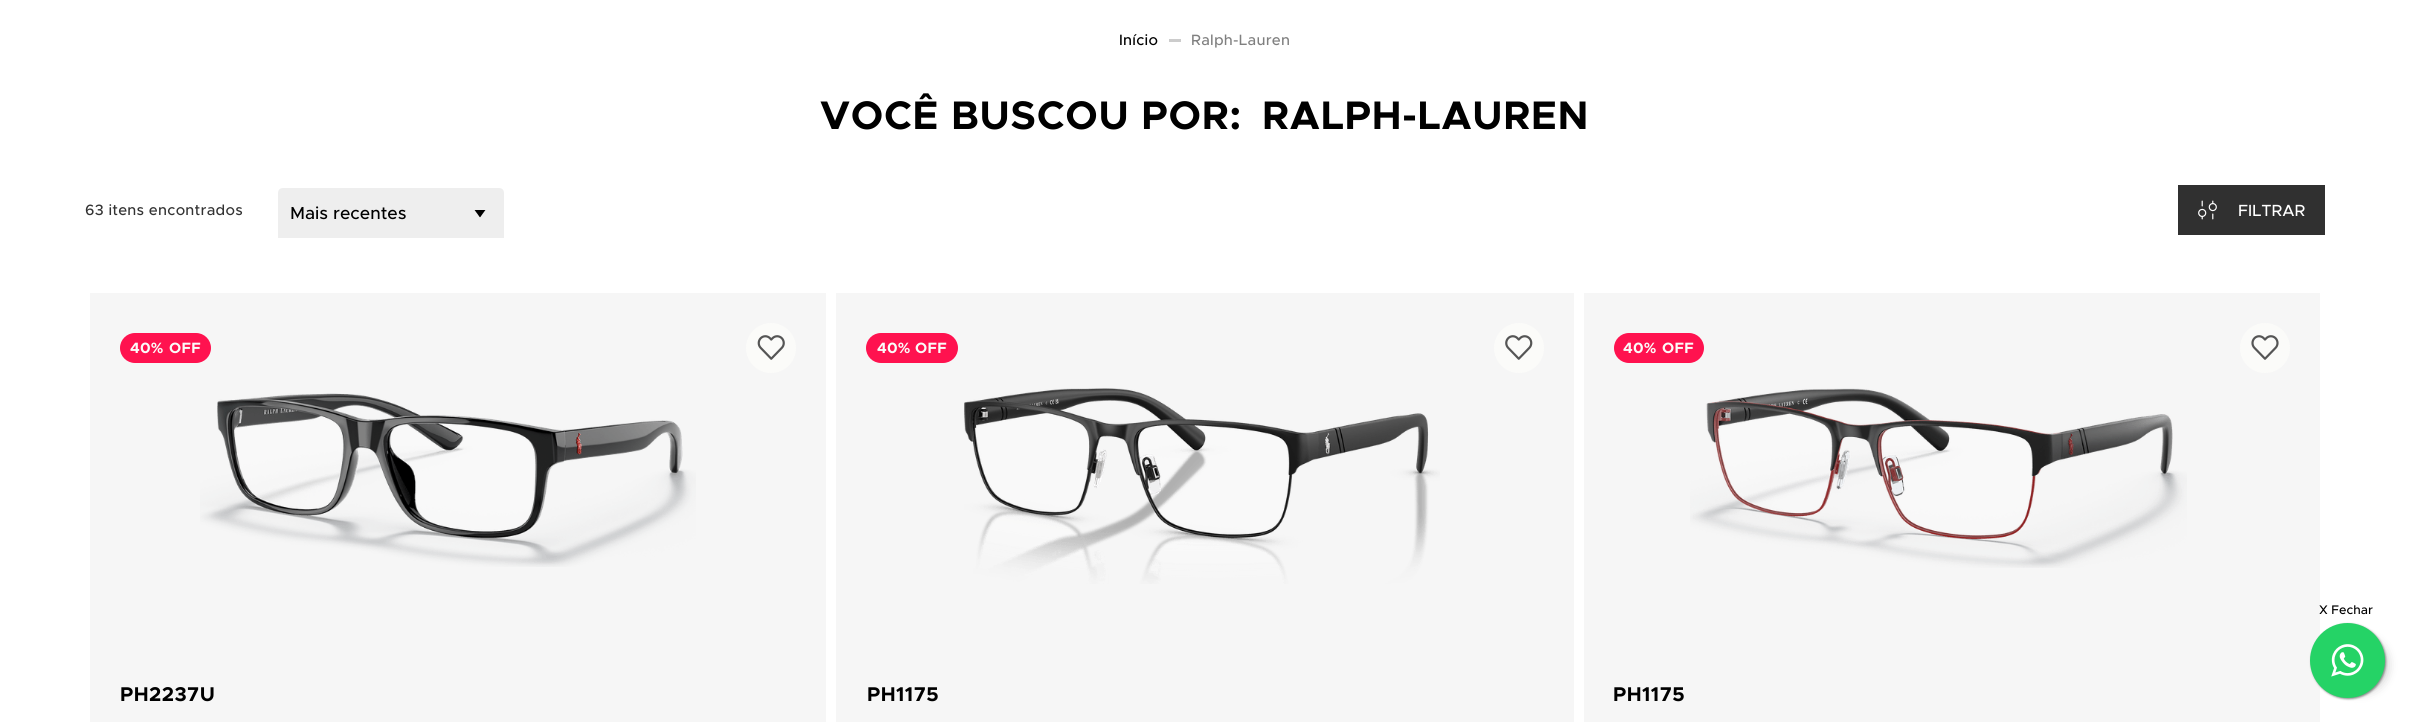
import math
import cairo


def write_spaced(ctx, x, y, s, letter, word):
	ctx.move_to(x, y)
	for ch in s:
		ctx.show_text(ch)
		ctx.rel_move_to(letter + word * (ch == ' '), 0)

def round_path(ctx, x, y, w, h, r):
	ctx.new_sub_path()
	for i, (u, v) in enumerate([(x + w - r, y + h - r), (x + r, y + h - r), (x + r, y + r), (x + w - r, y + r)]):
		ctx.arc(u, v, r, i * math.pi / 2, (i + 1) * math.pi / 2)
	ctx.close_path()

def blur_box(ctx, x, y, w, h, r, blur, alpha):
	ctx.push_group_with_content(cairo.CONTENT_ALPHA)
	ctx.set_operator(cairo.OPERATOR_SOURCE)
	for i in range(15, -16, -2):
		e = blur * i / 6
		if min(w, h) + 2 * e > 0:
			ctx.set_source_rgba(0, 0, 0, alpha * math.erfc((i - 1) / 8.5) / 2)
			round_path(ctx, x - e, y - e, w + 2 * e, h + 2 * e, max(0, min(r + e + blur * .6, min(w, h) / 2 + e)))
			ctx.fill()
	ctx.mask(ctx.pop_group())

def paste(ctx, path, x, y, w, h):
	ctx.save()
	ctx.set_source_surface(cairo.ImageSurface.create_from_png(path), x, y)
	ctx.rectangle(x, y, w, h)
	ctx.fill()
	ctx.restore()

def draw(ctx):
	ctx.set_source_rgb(1, 1, 1)
	ctx.paint()
	ctx.select_font_face('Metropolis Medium')
	ctx.set_font_size(15)
	ctx.set_source_rgb(0, 0, 0)
	write_spaced(ctx, 1119, 45, 'Início', 0.25, 0)
	ctx.set_source_rgb(0.8, 0.8, 0.8)
	ctx.rectangle(1169, 39, 12, 3)
	ctx.fill()
	ctx.set_source_rgb(0.502, 0.502, 0.502)
	write_spaced(ctx, 1191, 45, 'Ralph-Lauren', 0.25, 0)
	ctx.select_font_face('Metropolis', cairo.FONT_SLANT_NORMAL, cairo.FONT_WEIGHT_BOLD)
	ctx.set_font_size(40)
	ctx.set_source_rgb(0, 0, 0)
	write_spaced(ctx, 820, 129, 'VOCÊ BUSCOU POR:', 0.75, 0)
	write_spaced(ctx, 1262, 129, 'RALPH-LAUREN', 0.75, 0)
	ctx.select_font_face('Metropolis Medium')
	ctx.set_font_size(15)
	ctx.set_source_rgb(0.2, 0.2, 0.2)
	write_spaced(ctx, 85, 215, '63 itens encontrados', 0.25, 0)
	ctx.set_source_rgb(0.933, 0.933, 0.933)
	ctx.new_path()
	ctx.move_to(283, 188)
	ctx.line_to(499, 188)
	ctx.curve_to(502, 188, 504, 190, 504, 193)
	ctx.line_to(504, 238)
	ctx.line_to(278, 238)
	ctx.line_to(278, 193)
	ctx.curve_to(278, 190, 280, 188, 283, 188)
	ctx.close_path()
	ctx.fill()
	ctx.set_font_size(17.5)
	ctx.set_source_rgb(0, 0, 0)
	ctx.move_to(290, 219)
	ctx.show_text('Mais recentes')
	paste(ctx, 'media/1.png', 474, 210, 12, 8)
	ctx.set_source_rgb(0.188, 0.188, 0.188)
	ctx.rectangle(2178, 185, 147, 50)
	ctx.fill()
	paste(ctx, 'media/2.png', 2198, 200, 19, 20)
	ctx.set_font_size(16.25)
	ctx.set_source_rgb(1, 1, 1)
	ctx.move_to(2238, 216)
	ctx.show_text('FILTRAR')
	ctx.set_source_rgb(0.961, 0.961, 0.961)
	ctx.rectangle(90, 293, 736, 429)
	ctx.fill()
	ctx.set_source_rgb(1, 0.071, 0.31)
	round_path(ctx, 120, 333, 91, 30, 15)
	ctx.fill()
	ctx.select_font_face('Metropolis', cairo.FONT_SLANT_NORMAL, cairo.FONT_WEIGHT_BOLD)
	ctx.set_font_size(15)
	ctx.set_source_rgb(0.984, 0.984, 0.976)
	write_spaced(ctx, 130, 353, '40%', 0.25, 0)
	write_spaced(ctx, 169, 353, 'OFF', 0.25, 0)
	ctx.new_path()
	ctx.arc(771, 348, 25, 0, 2 * math.pi)
	ctx.fill()
	paste(ctx, 'media/3.png', 757, 335, 28, 25)
	paste(ctx, 'media/4.png', 200, 393, 496, 174)
	ctx.set_font_size(20)
	ctx.set_source_rgb(0, 0, 0)
	write_spaced(ctx, 120, 701, 'PH2237U', 0.5, 0)
	ctx.set_source_rgb(0.961, 0.961, 0.961)
	ctx.rectangle(836, 293, 738, 429)
	ctx.fill()
	ctx.set_source_rgb(1, 0.071, 0.31)
	round_path(ctx, 866, 333, 92, 30, 15)
	ctx.fill()
	ctx.set_font_size(15)
	ctx.set_source_rgb(0.984, 0.984, 0.976)
	write_spaced(ctx, 877, 353, '40%', 0.25, 0)
	write_spaced(ctx, 915, 353, 'OFF', 0.25, 0)
	ctx.new_path()
	ctx.arc(1519, 348, 25, 0, 2 * math.pi)
	ctx.fill()
	paste(ctx, 'media/5.png', 1505, 335, 28, 25)
	paste(ctx, 'media/6.png', 964, 388, 476, 196)
	ctx.set_font_size(20)
	ctx.set_source_rgb(0, 0, 0)
	write_spaced(ctx, 867, 701, 'PH1175', 0.5, 0)
	ctx.set_source_rgb(0.961, 0.961, 0.961)
	ctx.rectangle(1584, 293, 736, 429)
	ctx.fill()
	ctx.set_source_rgb(1, 0.071, 0.31)
	round_path(ctx, 1614, 333, 90, 30, 15)
	ctx.fill()
	ctx.set_font_size(15)
	ctx.set_source_rgb(0.984, 0.984, 0.976)
	write_spaced(ctx, 1623, 353, '40%', 0.25, 0)
	write_spaced(ctx, 1662, 353, 'OFF', 0.25, 0)
	ctx.new_path()
	ctx.arc(2265, 348, 25, 0, 2 * math.pi)
	ctx.fill()
	paste(ctx, 'media/7.png', 2251, 335, 28, 25)
	paste(ctx, 'media/8.png', 1690, 388, 497, 180)
	ctx.set_font_size(20)
	ctx.set_source_rgb(0, 0, 0)
	write_spaced(ctx, 1613, 701, 'PH1175', 0.5, 0)
	ctx.set_source_rgb(0, 0, 0)
	blur_box(ctx, 2335, 640, 50, 50, 25, 6, 0.3)
	ctx.select_font_face('Metropolis Medium')
	ctx.set_font_size(12.5)
	ctx.set_source_rgb(0, 0, 0)
	ctx.move_to(2319, 614)
	ctx.show_text('X Fechar')
	ctx.set_source_rgb(0.533, 0.533, 0.533)
	blur_box(ctx, 2311, 624, 75, 75, 37.5, 1, 1)
	ctx.set_source_rgb(0.145, 0.827, 0.4)
	ctx.arc(2347.5, 660.5, 37.5, 0, 2 * math.pi)
	ctx.fill()
	paste(ctx, 'media/9.png', 2331, 644, 33, 33)


surface = cairo.ImageSurface(cairo.FORMAT_RGB24, 2409, 722)
ctx = cairo.Context(surface)
options = cairo.FontOptions()
options.set_hint_metrics(cairo.HINT_METRICS_OFF)
options.set_hint_style(cairo.HINT_STYLE_NONE)
ctx.set_font_options(options)
ctx.set_miter_limit(4)
draw(ctx)
surface.write_to_png('image.png')
